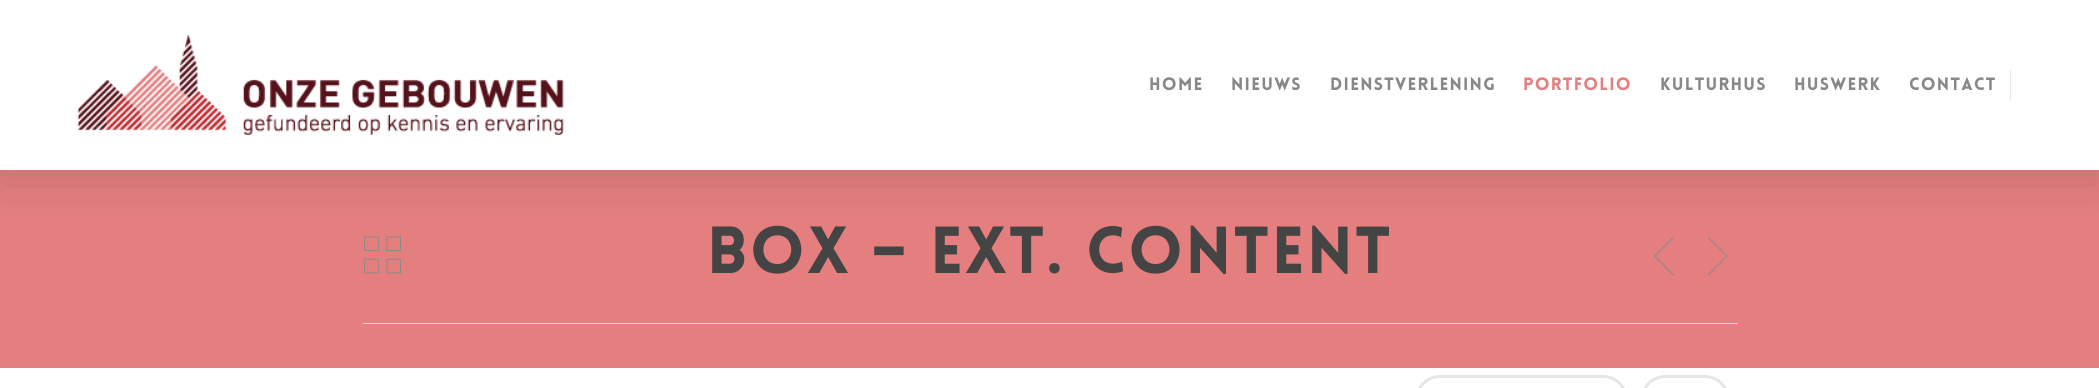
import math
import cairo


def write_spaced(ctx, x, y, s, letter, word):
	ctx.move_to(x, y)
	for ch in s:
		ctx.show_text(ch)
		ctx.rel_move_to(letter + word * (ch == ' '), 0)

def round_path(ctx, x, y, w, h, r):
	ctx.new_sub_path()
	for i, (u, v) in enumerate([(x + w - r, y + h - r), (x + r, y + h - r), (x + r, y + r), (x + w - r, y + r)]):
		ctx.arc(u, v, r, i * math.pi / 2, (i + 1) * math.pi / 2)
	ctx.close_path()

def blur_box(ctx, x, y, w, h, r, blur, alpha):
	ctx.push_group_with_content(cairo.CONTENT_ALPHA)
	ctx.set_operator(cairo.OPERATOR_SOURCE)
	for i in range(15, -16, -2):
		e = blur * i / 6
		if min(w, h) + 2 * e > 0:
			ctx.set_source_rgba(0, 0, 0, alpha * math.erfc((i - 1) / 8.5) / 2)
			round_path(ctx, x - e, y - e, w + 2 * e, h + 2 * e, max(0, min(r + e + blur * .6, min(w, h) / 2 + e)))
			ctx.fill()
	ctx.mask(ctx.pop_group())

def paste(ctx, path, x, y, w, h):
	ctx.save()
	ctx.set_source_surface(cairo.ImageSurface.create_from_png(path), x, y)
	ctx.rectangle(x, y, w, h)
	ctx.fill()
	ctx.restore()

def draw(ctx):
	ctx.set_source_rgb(0.898, 0.494, 0.498)
	ctx.paint()
	paste(ctx, 'media/2.png', 364, 236, 37, 38)
	ctx.set_source_rgb(0.533, 0.533, 0.533)
	ctx.new_path()
	ctx.move_to(1673.5, 238)
	ctx.line_to(1673, 237)
	ctx.line_to(1654, 256)
	ctx.line_to(1673, 275.5)
	ctx.line_to(1673.5, 274.5)
	ctx.line_to(1655.5, 256)
	ctx.close_path()
	ctx.fill()
	ctx.new_path()
	ctx.move_to(1708, 238)
	ctx.line_to(1708.5, 237)
	ctx.line_to(1727.5, 256)
	ctx.line_to(1708.5, 275.5)
	ctx.line_to(1708, 274.5)
	ctx.line_to(1726.5, 256)
	ctx.close_path()
	ctx.fill()
	ctx.set_source_rgb(0, 0, 0)
	blur_box(ctx, 0, 4, 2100, 170, 0, 28, 0.15)
	ctx.set_source_rgb(1, 1, 1)
	ctx.rectangle(0, 0, 2099, 170)
	ctx.fill()
	paste(ctx, 'media/1.png', 77, 35, 487, 100)
	ctx.select_font_face('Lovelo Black')
	ctx.set_font_size(17.5)
	ctx.set_source_rgb(0.533, 0.533, 0.533)
	for x, y, s in [
		(1149, 90, 'Home'),
		(1231, 90, 'Nieuws'),
		(1330, 90, 'Dienstverlening'),
	]:
		write_spaced(ctx, x, y, s, 1.25, 0)
	ctx.set_source_rgb(0.898, 0.494, 0.498)
	write_spaced(ctx, 1523, 90, 'Portfolio', 1.25, 0)
	ctx.set_source_rgb(0.533, 0.533, 0.533)
	for x, y, s in [
		(1660, 90, 'kulturhus'),
		(1794, 90, 'huswerk'),
		(1909, 90, 'Contact'),
	]:
		write_spaced(ctx, x, y, s, 1.25, 0)
	ctx.set_source_rgb(0.906, 0.906, 0.906)
	ctx.rectangle(2010, 70, 1, 30)
	ctx.fill()
	ctx.set_source_rgb(0.867, 0.867, 0.867)
	ctx.rectangle(363, 323, 1375, 1)
	ctx.fill()
	ctx.set_font_size(65)
	ctx.set_source_rgb(0.267, 0.267, 0.267)
	write_spaced(ctx, 707, 273, 'Box – Ext. Content', 2.5, 0)
	ctx.set_source_rgb(1, 1, 1)
	ctx.rectangle(0, 368, 2099, 20)
	ctx.fill()
	round_path(ctx, 1416.5, 376.5, 210, 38, 23.5)
	ctx.set_source_rgb(0.902, 0.902, 0.902)
	ctx.set_line_width(3)
	ctx.stroke()
	round_path(ctx, 1641.5, 376.5, 87, 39, 24)
	ctx.stroke()


surface = cairo.ImageSurface(cairo.FORMAT_RGB24, 2099, 388)
ctx = cairo.Context(surface)
options = cairo.FontOptions()
options.set_hint_metrics(cairo.HINT_METRICS_OFF)
options.set_hint_style(cairo.HINT_STYLE_NONE)
ctx.set_font_options(options)
ctx.set_miter_limit(4)
draw(ctx)
surface.write_to_png('image.png')
